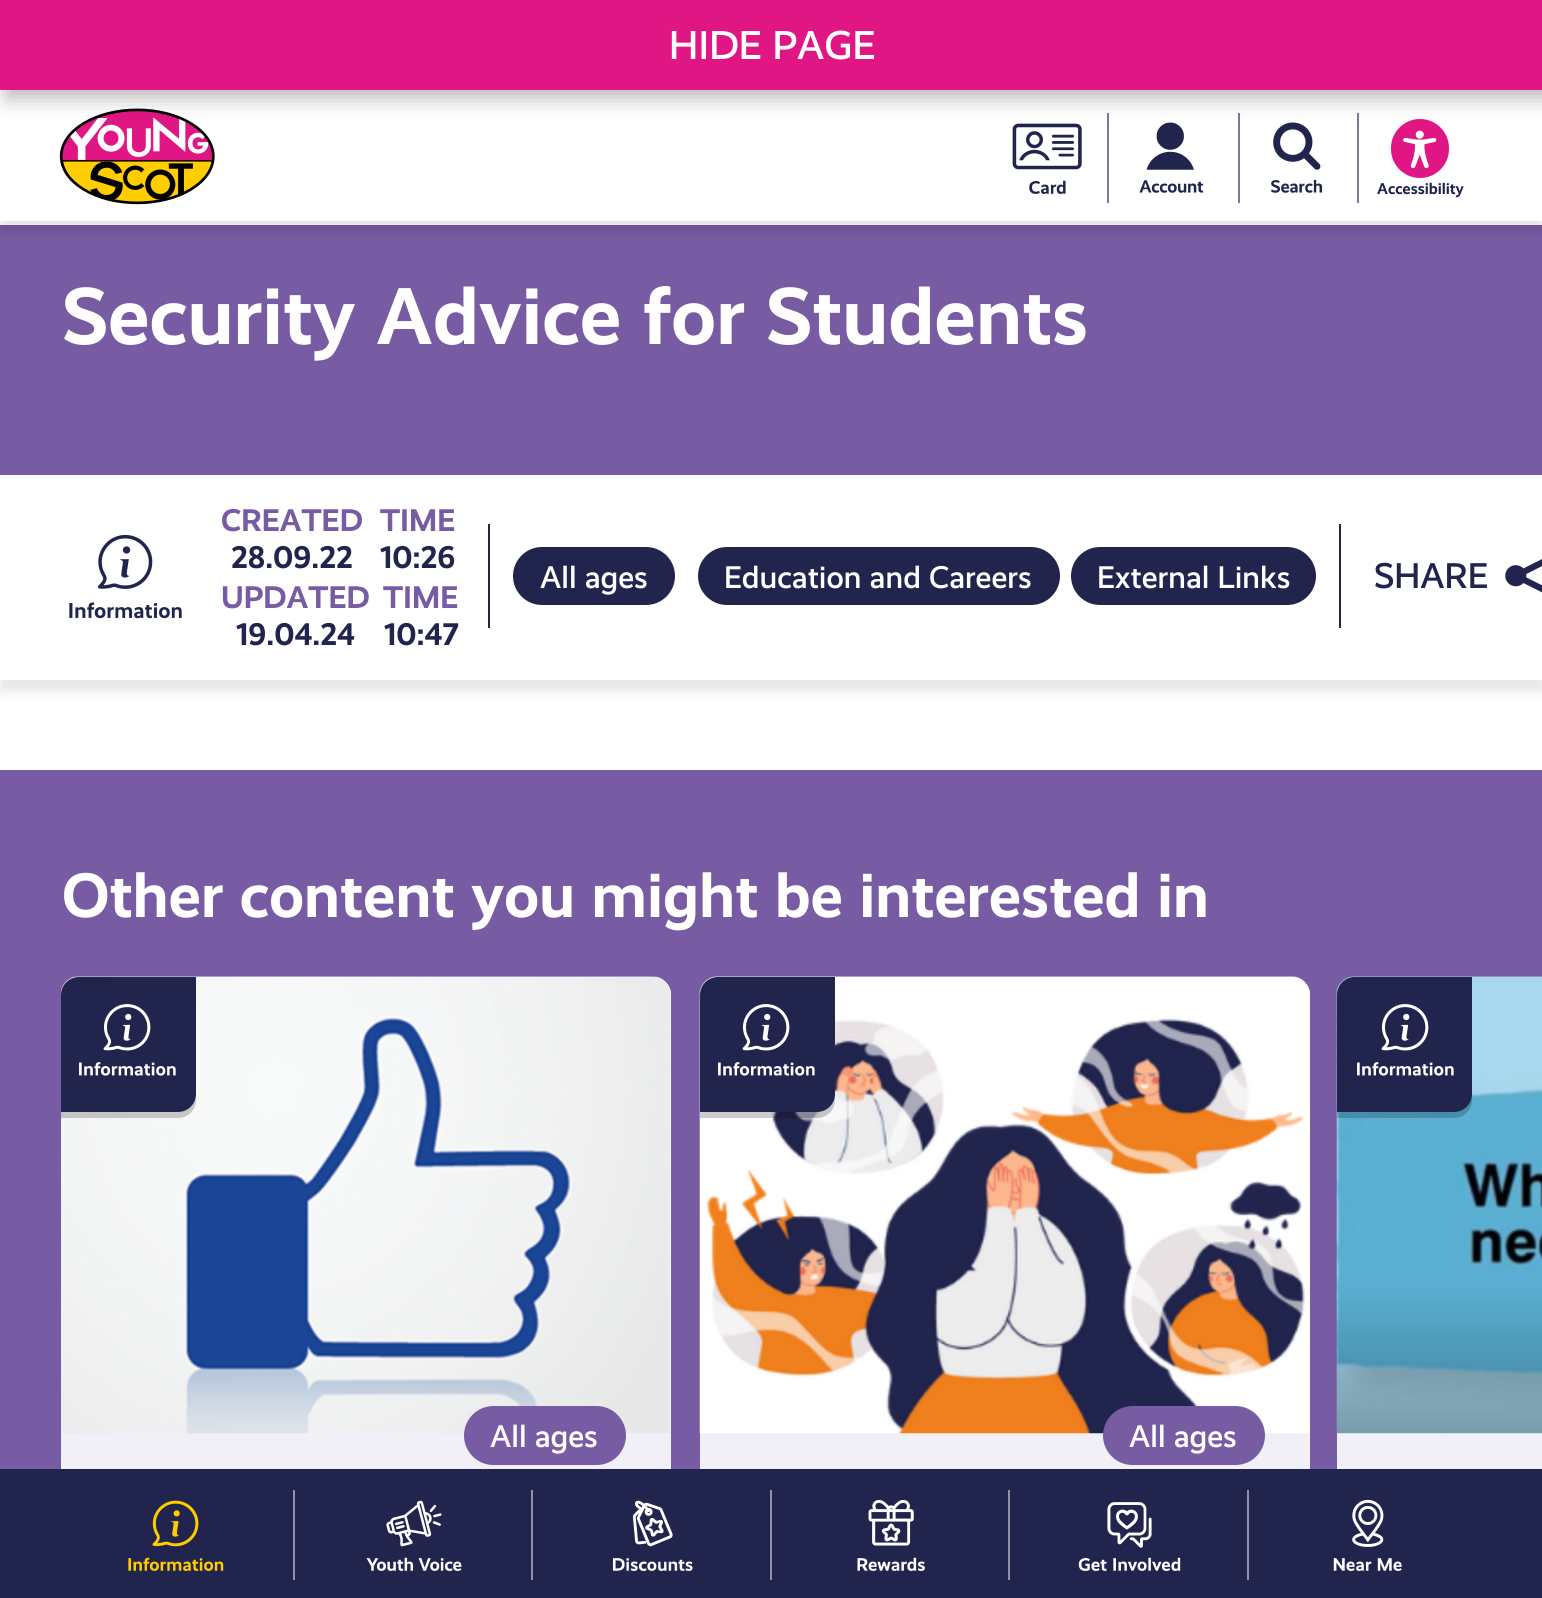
import math
import cairo


def round_path(ctx, x, y, w, h, r):
	ctx.new_sub_path()
	for i, (u, v) in enumerate([(x + w - r, y + h - r), (x + r, y + h - r), (x + r, y + r), (x + w - r, y + r)]):
		ctx.arc(u, v, r, i * math.pi / 2, (i + 1) * math.pi / 2)
	ctx.close_path()

def blur_box(ctx, x, y, w, h, r, blur, alpha):
	ctx.push_group_with_content(cairo.CONTENT_ALPHA)
	ctx.set_operator(cairo.OPERATOR_SOURCE)
	for i in range(15, -16, -2):
		e = blur * i / 6
		if min(w, h) + 2 * e > 0:
			ctx.set_source_rgba(0, 0, 0, alpha * math.erfc((i - 1) / 8.5) / 2)
			round_path(ctx, x - e, y - e, w + 2 * e, h + 2 * e, max(0, min(r + e + blur * .6, min(w, h) / 2 + e)))
			ctx.fill()
	ctx.mask(ctx.pop_group())

def paste(ctx, path, x, y, w, h):
	ctx.save()
	ctx.set_source_surface(cairo.ImageSurface.create_from_png(path), x, y)
	ctx.rectangle(x, y, w, h)
	ctx.fill()
	ctx.restore()

def draw(ctx):
	ctx.set_source_rgb(1, 1, 1)
	ctx.paint()
	ctx.set_source_rgb(0.467, 0.357, 0.639)
	ctx.rectangle(0, 225, 1542, 250)
	ctx.fill()
	ctx.set_source_rgb(0, 0, 0)
	blur_box(ctx, 0, 101, 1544, 131, 0, 5.5, 0.1)
	ctx.set_source_rgb(1, 1, 1)
	ctx.rectangle(0, 94, 1542, 127)
	ctx.fill()
	paste(ctx, 'media/1.png', 59, 108, 156, 97)
	paste(ctx, 'media/2.png', 1012, 123, 70, 71)
	ctx.set_source_rgb(0.478, 0.482, 0.588)
	ctx.rectangle(1107, 113, 2, 90)
	ctx.fill()
	paste(ctx, 'media/3.png', 1139, 122, 65, 71)
	ctx.rectangle(1238, 113, 2, 90)
	ctx.fill()
	paste(ctx, 'media/4.png', 1271, 122, 52, 71)
	ctx.rectangle(1357, 113, 2, 90)
	ctx.fill()
	ctx.set_source_rgb(0.875, 0.086, 0.514)
	round_path(ctx, 1391, 119, 58, 59, 29)
	ctx.fill()
	paste(ctx, 'media/5.png', 1403, 130, 34, 39)
	ctx.set_source_rgb(0, 0, 0)
	blur_box(ctx, 7, 7, 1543, 90, 0, 11, 0.3)
	ctx.set_source_rgb(0.875, 0.086, 0.514)
	ctx.rectangle(0, 0, 1542, 90)
	ctx.fill()
	ctx.select_font_face('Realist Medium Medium')
	ctx.set_font_size(40.5)
	ctx.set_source_rgb(1, 1, 1)
	ctx.move_to(669, 59)
	ctx.show_text('HIDE PAGE')
	ctx.set_source_rgb(0.467, 0.357, 0.639)
	ctx.rectangle(0, 770, 1542, 699)
	ctx.fill()
	ctx.set_source_rgb(0.941, 0.941, 0.961)
	round_path(ctx, 61, 977, 610, 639, 18)
	ctx.fill()
	round_path(ctx, 700, 977, 610, 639, 18)
	ctx.fill()
	ctx.new_path()
	ctx.move_to(1355, 977)
	ctx.line_to(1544, 977)
	ctx.line_to(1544, 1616)
	ctx.line_to(1355, 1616)
	ctx.curve_to(1345, 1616, 1337, 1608, 1337, 1598)
	ctx.line_to(1337, 995)
	ctx.curve_to(1337, 985, 1345, 977, 1355, 977)
	ctx.close_path()
	ctx.fill()
	ctx.set_source_rgb(0.129, 0.141, 0.302)
	ctx.rectangle(0, 1469, 1542, 129)
	ctx.fill()
	ctx.select_font_face('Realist', cairo.FONT_SLANT_NORMAL, cairo.FONT_WEIGHT_BOLD)
	ctx.set_font_size(15.75)
	ctx.move_to(1377, 194)
	ctx.show_text('Accessibility')
	paste(ctx, 'media/6.png', 128, 1500, 96, 71)
	ctx.set_source_rgb(0.565, 0.573, 0.651)
	ctx.rectangle(293, 1490, 2, 90)
	ctx.fill()
	paste(ctx, 'media/7.png', 366, 1500, 96, 71)
	ctx.rectangle(531, 1490, 2, 90)
	ctx.fill()
	paste(ctx, 'media/8.png', 612, 1500, 81, 71)
	ctx.rectangle(770, 1490, 2, 90)
	ctx.fill()
	paste(ctx, 'media/9.png', 857, 1500, 68, 71)
	ctx.rectangle(1008, 1490, 2, 90)
	ctx.fill()
	paste(ctx, 'media/10.png', 1078, 1502, 103, 69)
	ctx.rectangle(1247, 1490, 2, 90)
	ctx.fill()
	paste(ctx, 'media/11.png', 1333, 1499, 69, 72)
	ctx.set_font_size(81)
	ctx.set_source_rgb(1, 1, 1)
	ctx.move_to(62, 344)
	ctx.show_text('Security Advice for Students')
	ctx.set_source_rgb(0, 0, 0)
	blur_box(ctx, 0, 486, 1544, 205, 0, 5.5, 0.1)
	ctx.set_source_rgb(1, 1, 1)
	ctx.rectangle(0, 479, 1542, 201)
	ctx.fill()
	paste(ctx, 'media/12.png', 69, 534, 113, 85)
	ctx.set_font_size(31.5)
	ctx.set_source_rgb(0.467, 0.357, 0.639)
	ctx.move_to(221, 531)
	ctx.show_text('CREATED')
	ctx.set_source_rgb(0.129, 0.141, 0.302)
	ctx.move_to(231, 568)
	ctx.show_text('28.09.22')
	ctx.set_source_rgb(0.467, 0.357, 0.639)
	ctx.move_to(380, 531)
	ctx.show_text('TIME')
	ctx.set_source_rgb(0.129, 0.141, 0.302)
	ctx.move_to(380, 568)
	ctx.show_text('10:26')
	ctx.set_source_rgb(0.467, 0.357, 0.639)
	ctx.move_to(221, 608)
	ctx.show_text('UPDATED')
	ctx.set_source_rgb(0.129, 0.141, 0.302)
	ctx.move_to(236, 645)
	ctx.show_text('19.04.24')
	ctx.set_source_rgb(0.467, 0.357, 0.639)
	ctx.move_to(383, 608)
	ctx.show_text('TIME')
	ctx.set_source_rgb(0.129, 0.141, 0.302)
	ctx.move_to(384, 645)
	ctx.show_text('10:47')
	ctx.rectangle(488, 524, 2, 104)
	ctx.fill()
	round_path(ctx, 513, 547, 162, 58, 29)
	ctx.fill()
	ctx.select_font_face('Realist Medium Medium')
	ctx.set_source_rgb(1, 1, 1)
	ctx.move_to(540, 588)
	ctx.show_text('All ages')
	ctx.set_source_rgb(0.129, 0.141, 0.302)
	ctx.rectangle(1339, 524, 2, 104)
	ctx.fill()
	round_path(ctx, 698, 547, 362, 58, 29)
	ctx.fill()
	ctx.set_source_rgb(1, 1, 1)
	ctx.move_to(724, 588)
	ctx.show_text('Education and Careers')
	ctx.set_source_rgb(0.129, 0.141, 0.302)
	round_path(ctx, 1071, 547, 245, 58, 29)
	ctx.fill()
	ctx.set_source_rgb(1, 1, 1)
	ctx.move_to(1097, 588)
	ctx.show_text('External Links')
	ctx.set_font_size(36)
	ctx.set_source_rgb(0.129, 0.141, 0.302)
	ctx.move_to(1374, 588)
	ctx.show_text('SHARE')
	paste(ctx, 'media/13.png', 1505, 559, 37, 34)
	ctx.select_font_face('Realist', cairo.FONT_SLANT_NORMAL, cairo.FONT_WEIGHT_BOLD)
	ctx.set_font_size(63)
	ctx.set_source_rgb(1, 1, 1)
	ctx.move_to(62, 917)
	ctx.show_text('Other content you might be interested in')
	ctx.new_path()
	ctx.move_to(79, 977)
	ctx.line_to(653, 977)
	ctx.curve_to(663, 977, 671, 985, 671, 995)
	ctx.line_to(671, 1433)
	ctx.line_to(61, 1433)
	ctx.line_to(61, 995)
	ctx.curve_to(61, 985, 69, 977, 79, 977)
	ctx.close_path()
	ctx.fill()
	paste(ctx, 'media/14.png', 61, 976, 610, 458)
	ctx.set_source_rgba(0, 0, 0, 0.2)
	ctx.new_path()
	ctx.move_to(61, 1112)
	ctx.line_to(61, 1118)
	ctx.line_to(178, 1118)
	ctx.curve_to(188, 1118, 196, 1110, 196, 1100)
	ctx.line_to(196, 983)
	ctx.line_to(196, 1094)
	ctx.curve_to(196, 1103, 188, 1112, 178, 1112)
	ctx.close_path()
	ctx.fill()
	ctx.set_source_rgb(0.129, 0.141, 0.302)
	ctx.new_path()
	ctx.move_to(79, 977)
	ctx.line_to(196, 977)
	ctx.line_to(196, 1094)
	ctx.curve_to(196, 1104, 188, 1112, 178, 1112)
	ctx.line_to(61, 1112)
	ctx.line_to(61, 995)
	ctx.curve_to(61, 985, 69, 977, 79, 977)
	ctx.close_path()
	ctx.fill()
	paste(ctx, 'media/15.png', 79, 1004, 97, 72)
	ctx.set_source_rgb(0.467, 0.357, 0.639)
	round_path(ctx, 464, 1406, 162, 59, 29.5)
	ctx.fill()
	ctx.select_font_face('Realist Medium Medium')
	ctx.set_font_size(31.5)
	ctx.set_source_rgb(1, 1, 1)
	ctx.move_to(490, 1447)
	ctx.show_text('All ages')
	ctx.new_path()
	ctx.move_to(718, 977)
	ctx.line_to(1292, 977)
	ctx.curve_to(1302, 977, 1310, 985, 1310, 995)
	ctx.line_to(1310, 1433)
	ctx.line_to(700, 1433)
	ctx.line_to(700, 995)
	ctx.curve_to(700, 985, 708, 977, 718, 977)
	ctx.close_path()
	ctx.fill()
	paste(ctx, 'media/16.png', 699, 976, 611, 458)
	ctx.set_source_rgba(0, 0, 0, 0.2)
	ctx.new_path()
	ctx.move_to(700, 1112)
	ctx.line_to(700, 1118)
	ctx.line_to(817, 1118)
	ctx.curve_to(827, 1118, 835, 1110, 835, 1100)
	ctx.line_to(835, 983)
	ctx.line_to(835, 1094)
	ctx.curve_to(835, 1103, 827, 1112, 817, 1112)
	ctx.close_path()
	ctx.fill()
	ctx.set_source_rgb(0.129, 0.141, 0.302)
	ctx.new_path()
	ctx.move_to(718, 977)
	ctx.line_to(835, 977)
	ctx.line_to(835, 1094)
	ctx.curve_to(835, 1104, 827, 1112, 817, 1112)
	ctx.line_to(700, 1112)
	ctx.line_to(700, 995)
	ctx.curve_to(700, 985, 708, 977, 718, 977)
	ctx.close_path()
	ctx.fill()
	paste(ctx, 'media/17.png', 718, 1004, 97, 72)
	ctx.set_source_rgb(0.467, 0.357, 0.639)
	round_path(ctx, 1103, 1406, 162, 59, 29.5)
	ctx.fill()
	ctx.set_source_rgb(1, 1, 1)
	ctx.move_to(1129, 1447)
	ctx.show_text('All ages')
	paste(ctx, 'media/18.png', 1336, 976, 206, 458)
	ctx.set_source_rgba(0, 0, 0, 0.2)
	ctx.new_path()
	ctx.move_to(1337, 1112)
	ctx.line_to(1337, 1118)
	ctx.line_to(1454, 1118)
	ctx.curve_to(1464, 1118, 1472, 1110, 1472, 1100)
	ctx.line_to(1472, 983)
	ctx.line_to(1472, 1094)
	ctx.curve_to(1472, 1103, 1463, 1112, 1454, 1112)
	ctx.close_path()
	ctx.fill()
	ctx.set_source_rgb(0.129, 0.141, 0.302)
	ctx.new_path()
	ctx.move_to(1355, 977)
	ctx.line_to(1472, 977)
	ctx.line_to(1472, 1094)
	ctx.curve_to(1472, 1104, 1464, 1112, 1454, 1112)
	ctx.line_to(1337, 1112)
	ctx.line_to(1337, 995)
	ctx.curve_to(1337, 985, 1345, 977, 1355, 977)
	ctx.close_path()
	ctx.fill()
	paste(ctx, 'media/17.png', 1357, 1004, 97, 72)


surface = cairo.ImageSurface(cairo.FORMAT_RGB24, 1542, 1598)
ctx = cairo.Context(surface)
options = cairo.FontOptions()
options.set_hint_metrics(cairo.HINT_METRICS_OFF)
options.set_hint_style(cairo.HINT_STYLE_NONE)
ctx.set_font_options(options)
ctx.set_miter_limit(4)
draw(ctx)
surface.write_to_png('image.png')
